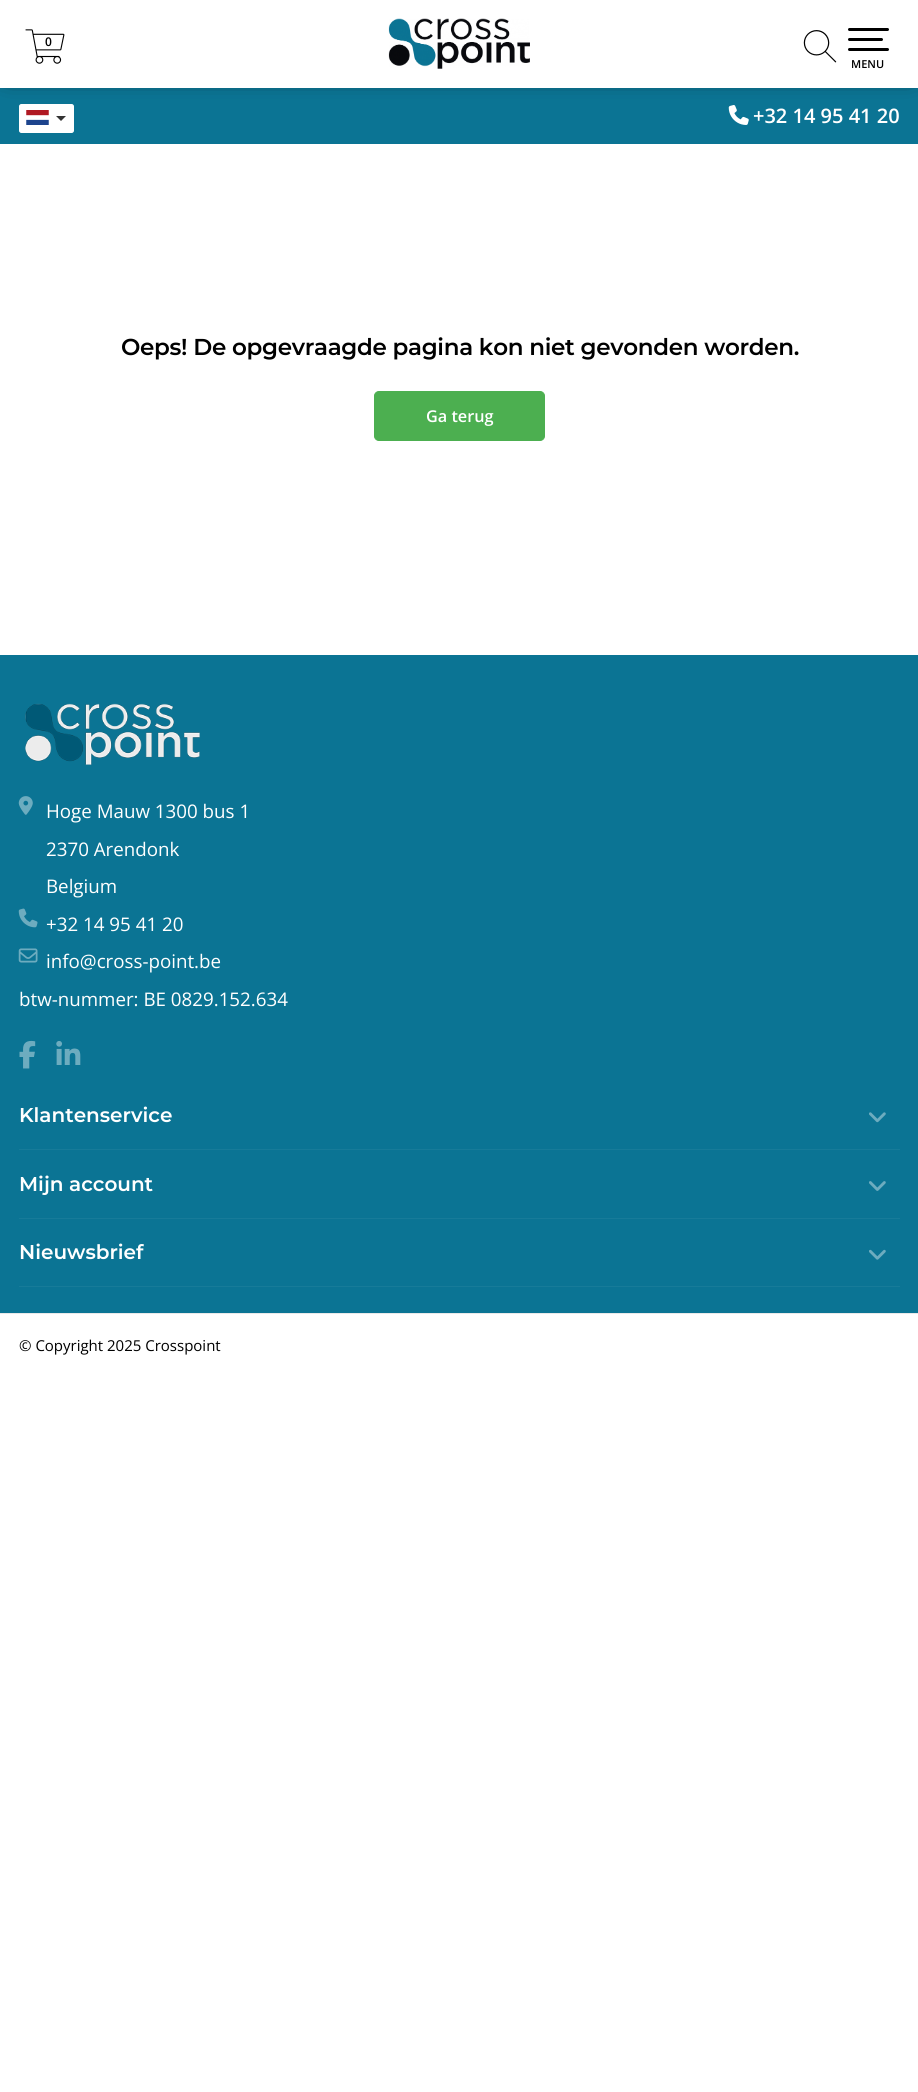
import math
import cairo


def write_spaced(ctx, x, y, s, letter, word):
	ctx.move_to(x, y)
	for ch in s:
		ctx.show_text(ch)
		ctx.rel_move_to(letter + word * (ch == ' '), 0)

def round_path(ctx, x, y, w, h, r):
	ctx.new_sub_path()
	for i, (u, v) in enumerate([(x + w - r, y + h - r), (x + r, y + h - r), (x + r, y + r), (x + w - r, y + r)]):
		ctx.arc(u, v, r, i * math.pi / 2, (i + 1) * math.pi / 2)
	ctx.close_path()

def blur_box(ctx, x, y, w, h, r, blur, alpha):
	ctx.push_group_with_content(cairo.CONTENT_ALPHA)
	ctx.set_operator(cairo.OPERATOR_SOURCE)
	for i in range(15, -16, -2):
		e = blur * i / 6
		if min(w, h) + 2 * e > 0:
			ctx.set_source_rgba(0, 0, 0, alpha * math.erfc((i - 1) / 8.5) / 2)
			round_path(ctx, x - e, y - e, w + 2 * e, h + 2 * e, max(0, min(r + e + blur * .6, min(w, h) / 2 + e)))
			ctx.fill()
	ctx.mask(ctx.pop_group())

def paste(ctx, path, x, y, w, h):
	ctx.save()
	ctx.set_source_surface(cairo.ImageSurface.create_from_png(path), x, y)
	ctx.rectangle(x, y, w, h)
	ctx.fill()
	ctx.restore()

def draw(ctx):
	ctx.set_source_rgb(1, 1, 1)
	ctx.paint()
	ctx.set_source_rgb(0.043, 0.455, 0.58)
	ctx.rectangle(0, 88, 918, 56)
	ctx.fill()
	ctx.set_source_rgb(1, 1, 1)
	round_path(ctx, 19.5, 104.5, 54, 28, 2)
	ctx.fill_preserve()
	ctx.set_line_width(1)
	ctx.stroke()
	paste(ctx, 'media/5.png', 728, 105, 21, 20)
	ctx.set_source_rgb(0, 0, 0)
	blur_box(ctx, 8, 8, 903, 60, 0, 12.5, 1)
	blur_box(ctx, 8, 8, 903, 60, 0, 12.5, 1)
	ctx.set_source_rgb(1, 1, 1)
	ctx.rectangle(0, 0, 918, 88)
	ctx.fill()
	paste(ctx, 'media/1.png', 388, 18, 142, 51)
	paste(ctx, 'media/2.png', 25, 29, 40, 35)
	ctx.select_font_face('Open Sans SemiBold')
	ctx.set_font_size(12)
	ctx.set_source_rgb(0, 0, 0)
	ctx.move_to(45, 46)
	ctx.show_text('0')
	paste(ctx, 'media/3.png', 803, 30, 34, 33)
	round_path(ctx, 848, 28, 41, 3, 1.5)
	ctx.fill()
	round_path(ctx, 848, 38, 35, 3, 1.5)
	ctx.fill()
	round_path(ctx, 848, 48, 41, 3, 1.5)
	ctx.fill()
	ctx.set_font_size(11)
	ctx.move_to(851, 68)
	ctx.show_text('MENU')
	paste(ctx, 'media/4.png', 26, 110, 23, 15)
	ctx.set_source_rgb(0.2, 0.2, 0.2)
	ctx.new_path()
	ctx.move_to(56, 116)
	ctx.line_to(66, 116)
	ctx.line_to(61, 121)
	ctx.close_path()
	ctx.fill()
	ctx.set_font_size(20)
	ctx.set_source_rgb(1, 1, 1)
	ctx.move_to(753, 123)
	ctx.show_text('+32 14 95 41 20')
	ctx.select_font_face('Montserrat SemiBold')
	ctx.set_font_size(23)
	ctx.set_source_rgb(0, 0, 0)
	write_spaced(ctx, 121, 355, 'Oeps! De opgevraagde pagina kon niet gevonden worden.', -0.3, 0)
	ctx.set_source_rgb(0.298, 0.686, 0.314)
	round_path(ctx, 374.5, 391.5, 170, 49, 4.5)
	ctx.fill_preserve()
	ctx.stroke()
	ctx.select_font_face('Open Sans SemiBold')
	ctx.set_font_size(16.25)
	ctx.set_source_rgb(1, 1, 1)
	ctx.move_to(426, 422)
	ctx.show_text('Ga terug')
	ctx.set_source_rgb(0.043, 0.455, 0.58)
	ctx.rectangle(0, 655, 918, 658)
	ctx.fill()
	paste(ctx, 'media/6.png', 25, 703, 175, 62)
	paste(ctx, 'media/7.png', 18, 796, 15, 19)
	ctx.select_font_face('Open Sans')
	ctx.set_font_size(18.75)
	ctx.set_source_rgb(1, 1, 1)
	for x, y, s in [
		(46, 818, 'Hoge Mauw 1300 bus 1'),
		(46, 856, '2370 Arendonk'),
		(46, 893, 'Belgium'),
	]:
		ctx.move_to(x, y)
		ctx.show_text(s)
	paste(ctx, 'media/8.png', 18, 908, 20, 20)
	ctx.move_to(46, 931)
	ctx.show_text('+32 14 95 41 20')
	paste(ctx, 'media/9.png', 18, 948, 20, 15)
	ctx.move_to(46, 968)
	ctx.show_text('info@cross-point.be')
	ctx.move_to(19, 1006)
	ctx.show_text('btw-nummer: BE 0829.152.634')
	paste(ctx, 'media/10.png', 19, 1040, 17, 29)
	paste(ctx, 'media/11.png', 56, 1041, 25, 24)
	ctx.set_source_rgb(0.09, 0.482, 0.6)
	ctx.rectangle(19, 1149, 881, 1)
	ctx.fill()
	ctx.select_font_face('Montserrat SemiBold')
	ctx.set_font_size(20)
	ctx.set_source_rgb(1, 1, 1)
	ctx.move_to(19, 1122)
	ctx.show_text('Klantenservice')
	paste(ctx, 'media/12.png', 869, 1112, 17, 11)
	ctx.set_source_rgb(0.09, 0.482, 0.6)
	ctx.rectangle(19, 1218, 881, 1)
	ctx.fill()
	ctx.set_source_rgb(1, 1, 1)
	ctx.move_to(19, 1191)
	ctx.show_text('Mijn account')
	paste(ctx, 'media/13.png', 869, 1181, 17, 10)
	ctx.set_source_rgb(0.09, 0.482, 0.6)
	ctx.rectangle(19, 1286, 881, 1)
	ctx.fill()
	ctx.set_source_rgb(1, 1, 1)
	ctx.move_to(19, 1259)
	ctx.show_text('Nieuwsbrief')
	paste(ctx, 'media/14.png', 869, 1249, 17, 11)
	ctx.set_source_rgb(0.914, 0.914, 0.914)
	ctx.rectangle(0, 1313, 918, 1)
	ctx.fill()
	ctx.select_font_face('Open Sans')
	ctx.set_font_size(15)
	ctx.set_source_rgb(0, 0, 0)
	ctx.move_to(19, 1351)
	ctx.show_text('© Copyright 2025 Crosspoint')


surface = cairo.ImageSurface(cairo.FORMAT_RGB24, 918, 2092)
ctx = cairo.Context(surface)
options = cairo.FontOptions()
options.set_hint_metrics(cairo.HINT_METRICS_OFF)
options.set_hint_style(cairo.HINT_STYLE_NONE)
ctx.set_font_options(options)
ctx.set_miter_limit(4)
draw(ctx)
surface.write_to_png('image.png')
